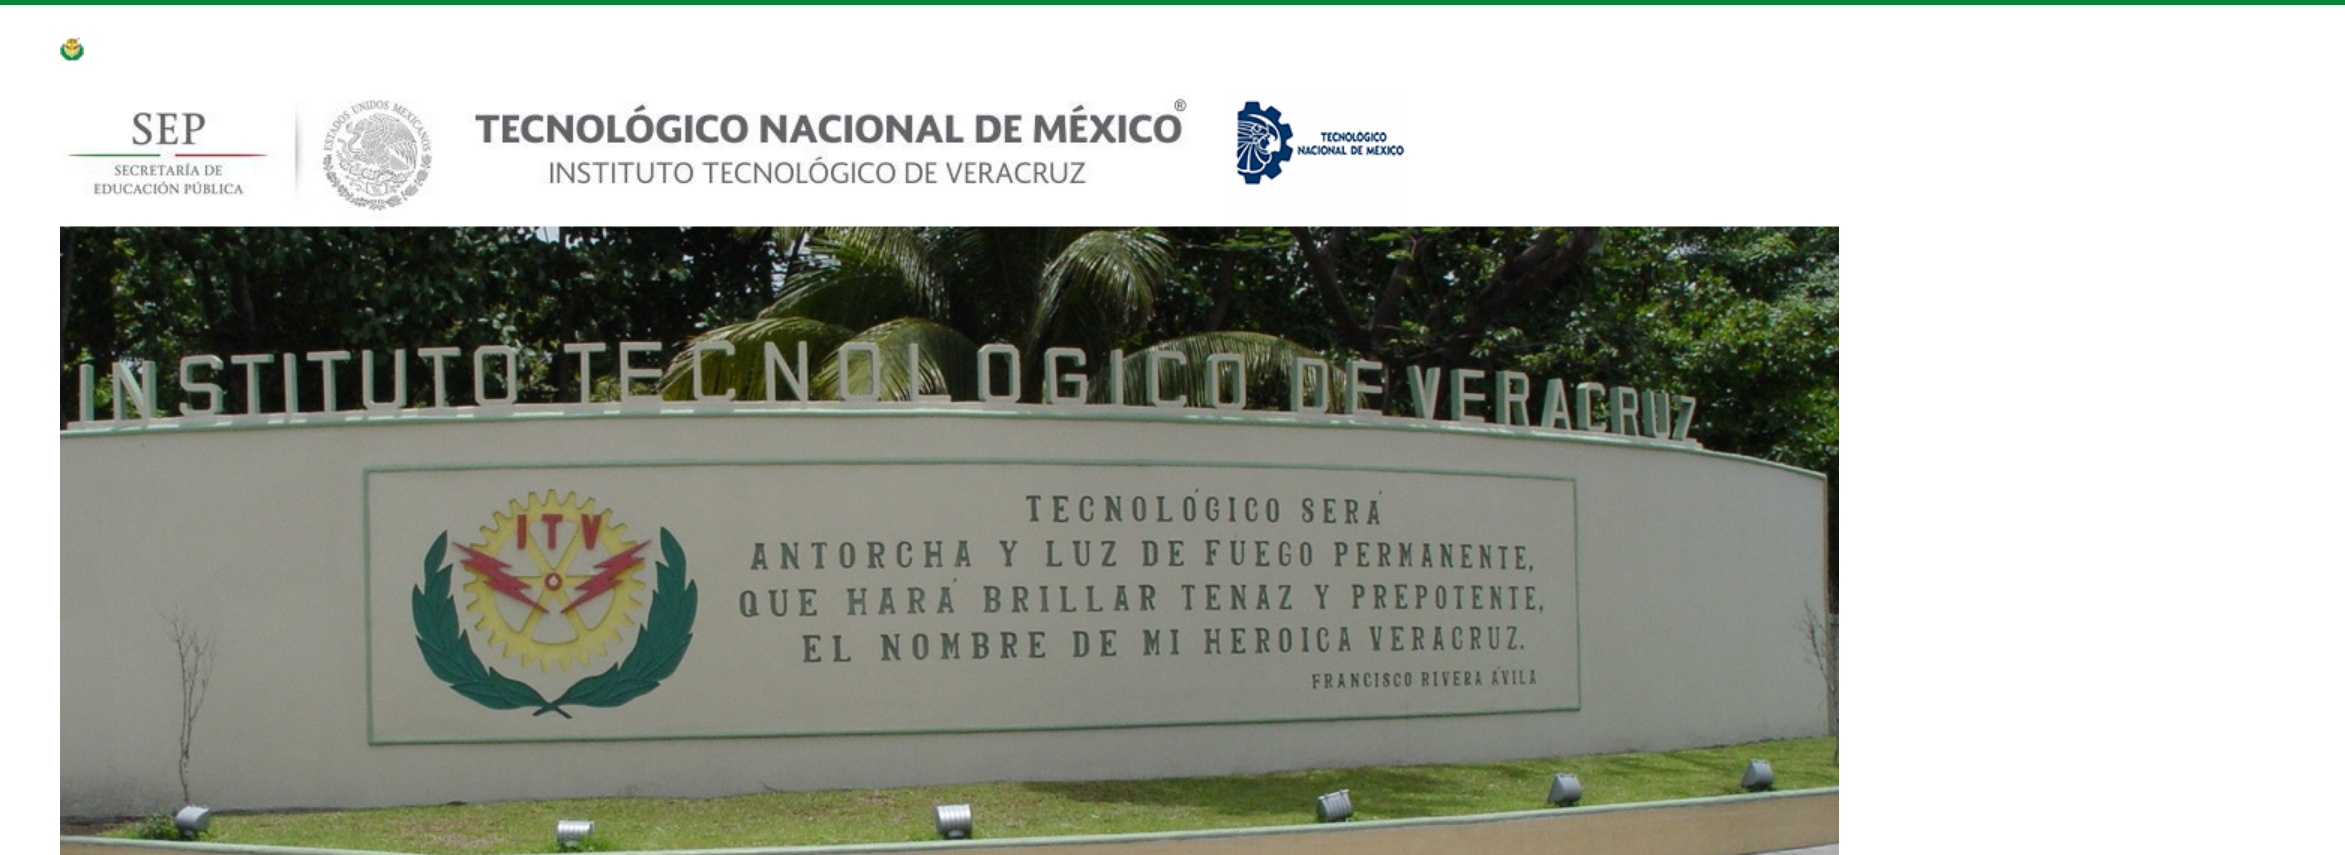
import math
import cairo


def paste(ctx, path, x, y, w, h):
	ctx.save()
	ctx.set_source_surface(cairo.ImageSurface.create_from_png(path), x, y)
	ctx.rectangle(x, y, w, h)
	ctx.fill()
	ctx.restore()

def draw(ctx):
	ctx.set_source_rgb(1, 1, 1)
	ctx.paint()
	ctx.set_source_rgb(0.02, 0.529, 0.224)
	ctx.rectangle(0, 0, 2345, 5)
	ctx.fill()
	paste(ctx, 'media/1.png', 60, 37, 24, 25)
	paste(ctx, 'media/2.png', 60, 90, 1345, 130)
	paste(ctx, 'media/3.png', 60, 226, 1779, 629)


surface = cairo.ImageSurface(cairo.FORMAT_RGB24, 2345, 855)
ctx = cairo.Context(surface)
options = cairo.FontOptions()
options.set_hint_metrics(cairo.HINT_METRICS_OFF)
options.set_hint_style(cairo.HINT_STYLE_NONE)
ctx.set_font_options(options)
ctx.set_miter_limit(4)
draw(ctx)
surface.write_to_png('image.png')
